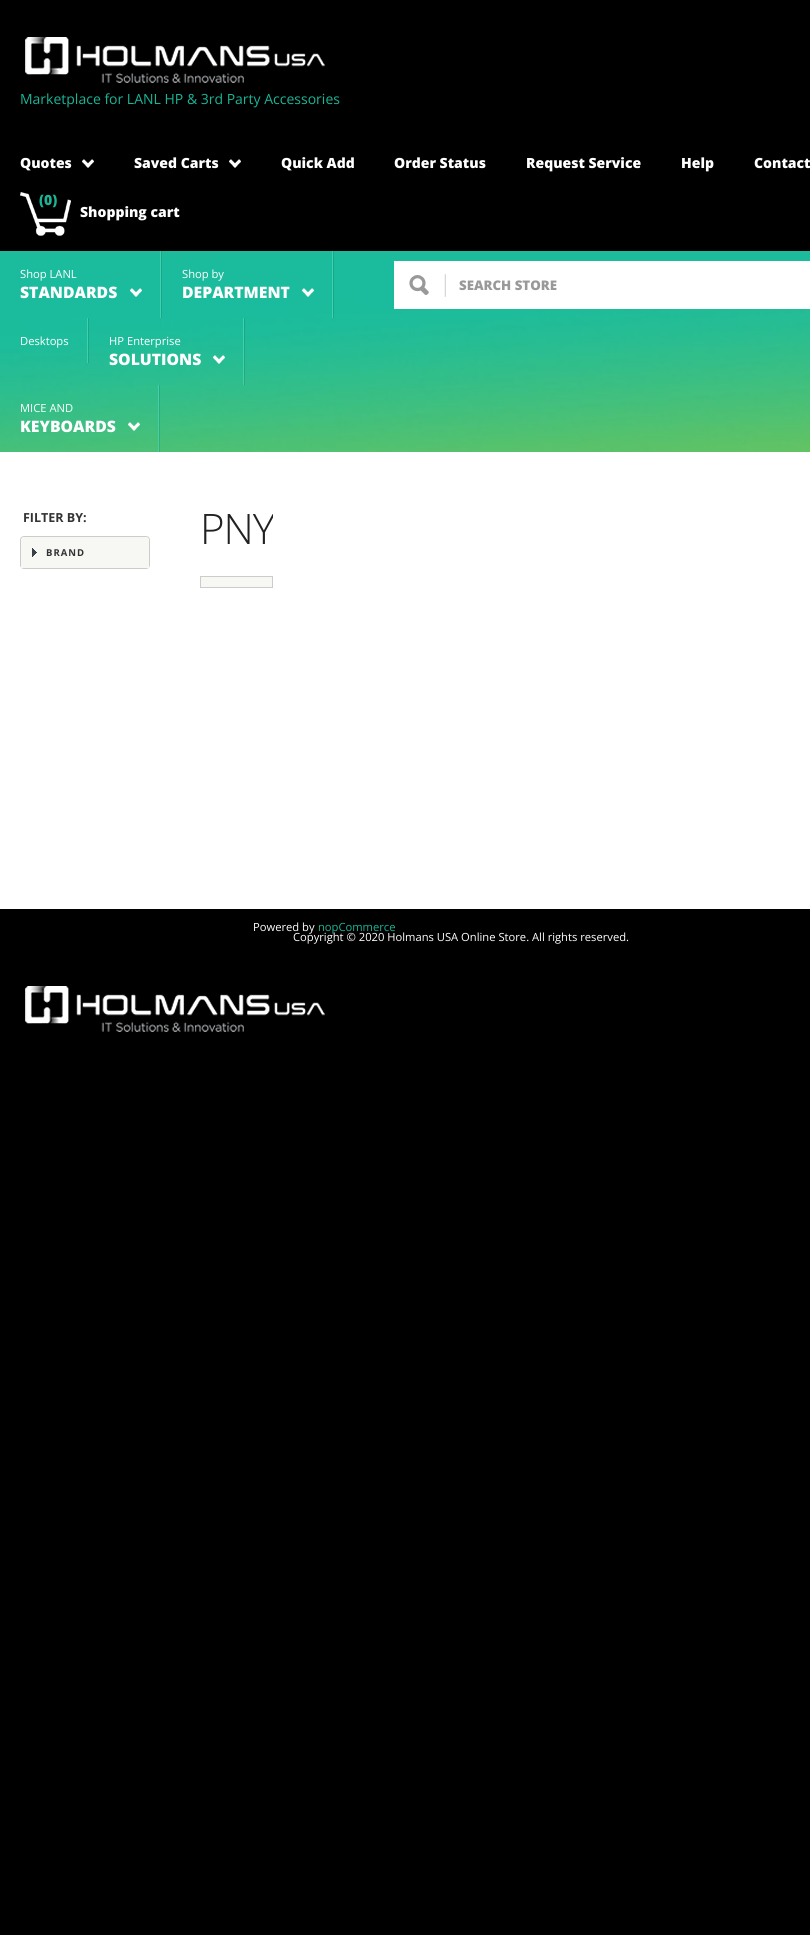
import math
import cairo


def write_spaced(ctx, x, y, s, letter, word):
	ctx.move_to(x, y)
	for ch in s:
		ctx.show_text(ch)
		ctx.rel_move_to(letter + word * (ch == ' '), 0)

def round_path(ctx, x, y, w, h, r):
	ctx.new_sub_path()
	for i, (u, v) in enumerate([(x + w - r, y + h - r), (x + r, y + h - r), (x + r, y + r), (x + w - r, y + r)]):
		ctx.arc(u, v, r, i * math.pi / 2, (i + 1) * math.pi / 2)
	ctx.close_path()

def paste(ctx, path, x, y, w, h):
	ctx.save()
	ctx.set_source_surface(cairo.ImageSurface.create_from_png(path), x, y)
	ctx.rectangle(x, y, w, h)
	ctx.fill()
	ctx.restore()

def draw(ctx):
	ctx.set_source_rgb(0, 0, 0)
	ctx.paint()
	ctx.set_source_rgb(1, 1, 1)
	ctx.rectangle(0, 452, 810, 457)
	ctx.fill()
	paste(ctx, 'media/1.png', 25, 37, 300, 46)
	ctx.select_font_face('Open Sans')
	ctx.set_font_size(14)
	ctx.set_source_rgb(0.102, 0.71, 0.592)
	ctx.move_to(20, 104)
	ctx.show_text('Marketplace for LANL HP & 3rd Party Accessories')
	ctx.select_font_face('Open Sans ExtraBold')
	ctx.set_source_rgb(1, 1, 1)
	ctx.move_to(20, 168)
	ctx.show_text('Quotes')
	paste(ctx, 'media/2.png', 82, 159, 12, 9)
	ctx.move_to(134, 168)
	ctx.show_text('Saved Carts')
	paste(ctx, 'media/2.png', 229, 159, 12, 9)
	for x, y, s in [
		(281, 168, 'Quick Add'),
		(394, 168, 'Order Status'),
		(526, 168, 'Request Service'),
		(681, 168, 'Help'),
		(754, 168, 'Contact'),
	]:
		ctx.move_to(x, y)
		ctx.show_text(s)
	paste(ctx, 'media/3.png', 20, 192, 51, 44)
	ctx.set_source_rgb(0.102, 0.71, 0.592)
	ctx.move_to(39, 205)
	ctx.show_text('(0)')
	ctx.set_source_rgb(1, 1, 1)
	ctx.move_to(80, 217)
	ctx.show_text('Shopping cart')
	paste(ctx, 'media/4.png', 0, 251, 810, 201)
	paste(ctx, 'media/5.png', 160, 251, 2, 67)
	ctx.select_font_face('Open Sans')
	ctx.set_font_size(11.2)
	ctx.move_to(20, 278)
	ctx.show_text('Shop LANL')
	paste(ctx, 'media/6.png', 130, 288, 12, 9)
	ctx.select_font_face('Open Sans ExtraBold')
	ctx.set_font_size(15.75)
	ctx.move_to(20, 298)
	ctx.show_text('STANDARDS')
	paste(ctx, 'media/7.png', 332, 251, 2, 67)
	ctx.select_font_face('Open Sans')
	ctx.set_font_size(11.2)
	ctx.move_to(182, 278)
	ctx.show_text('Shop by')
	paste(ctx, 'media/6.png', 302, 288, 12, 9)
	ctx.select_font_face('Open Sans ExtraBold')
	ctx.set_font_size(15.75)
	ctx.move_to(182, 298)
	ctx.show_text('DEPARTMENT')
	paste(ctx, 'media/8.png', 87, 318, 2, 45)
	ctx.select_font_face('Open Sans')
	ctx.set_font_size(11.2)
	ctx.move_to(20, 345)
	ctx.show_text('Desktops')
	paste(ctx, 'media/9.png', 243, 318, 2, 67)
	ctx.move_to(109, 345)
	ctx.show_text('HP Enterprise')
	paste(ctx, 'media/10.png', 213, 355, 12, 9)
	ctx.select_font_face('Open Sans ExtraBold')
	ctx.set_font_size(15.75)
	ctx.move_to(109, 365)
	ctx.show_text('SOLUTIONS')
	paste(ctx, 'media/11.png', 158, 385, 2, 67)
	ctx.select_font_face('Open Sans')
	ctx.set_font_size(11.2)
	ctx.move_to(20, 412)
	ctx.show_text('MICE AND')
	paste(ctx, 'media/12.png', 128, 422, 12, 9)
	ctx.select_font_face('Open Sans ExtraBold')
	ctx.set_font_size(15.75)
	ctx.move_to(20, 432)
	ctx.show_text('KEYBOARDS')
	ctx.rectangle(394, 261, 416, 48)
	ctx.fill()
	paste(ctx, 'media/13.png', 409, 274, 37, 23)
	ctx.set_font_size(13.25)
	ctx.set_source_rgb(0.6, 0.6, 0.6)
	ctx.move_to(459, 290)
	ctx.show_text('SEARCH STORE')
	ctx.select_font_face('Open Sans', cairo.FONT_SLANT_NORMAL, cairo.FONT_WEIGHT_BOLD)
	ctx.set_font_size(12.5)
	ctx.set_source_rgb(0.2, 0.2, 0.2)
	ctx.move_to(23, 522)
	ctx.show_text('FILTER BY:')
	round_path(ctx, 20.5, 536.5, 129, 32, 3.5)
	ctx.set_source_rgb(0.8, 0.8, 0.8)
	ctx.set_line_width(1)
	ctx.stroke()
	ctx.set_source_rgb(0.965, 0.965, 0.957)
	ctx.new_path()
	ctx.move_to(26, 537)
	ctx.line_to(144, 537)
	ctx.curve_to(147, 537, 149, 539, 149, 542)
	ctx.line_to(149, 568)
	ctx.line_to(21, 568)
	ctx.line_to(21, 542)
	ctx.curve_to(21, 539, 23, 537, 26, 537)
	ctx.close_path()
	ctx.fill()
	paste(ctx, 'media/14.png', 32, 548, 5, 9)
	ctx.set_font_size(9.5)
	ctx.set_source_rgb(0.2, 0.2, 0.2)
	write_spaced(ctx, 46, 556, 'BRAND', 1, 0)
	ctx.save()
	ctx.rectangle(200, 499, 73, 67)
	ctx.clip()
	ctx.select_font_face('Open Sans Light')
	ctx.set_font_size(42)
	ctx.set_source_rgb(0.133, 0.125, 0.125)
	write_spaced(ctx, 200, 544, 'PNY', -1, 0)
	ctx.restore()
	ctx.set_source_rgb(0.965, 0.965, 0.957)
	ctx.rectangle(200.5, 576.5, 72, 11)
	ctx.fill_preserve()
	ctx.set_source_rgb(0.8, 0.8, 0.8)
	ctx.stroke()
	ctx.select_font_face('Open Sans')
	ctx.set_font_size(11.2)
	ctx.set_source_rgb(1, 1, 1)
	ctx.move_to(253, 931)
	ctx.show_text('Powered by')
	ctx.set_source_rgb(0.102, 0.71, 0.592)
	ctx.move_to(318, 931)
	ctx.show_text('nopCommerce')
	ctx.set_source_rgb(1, 1, 1)
	ctx.move_to(293, 941)
	ctx.show_text('Copyright © 2020 Holmans USA Online Store. All rights reserved.')
	paste(ctx, 'media/1.png', 25, 986, 300, 46)


surface = cairo.ImageSurface(cairo.FORMAT_RGB24, 810, 1935)
ctx = cairo.Context(surface)
options = cairo.FontOptions()
options.set_hint_metrics(cairo.HINT_METRICS_OFF)
options.set_hint_style(cairo.HINT_STYLE_NONE)
ctx.set_font_options(options)
ctx.set_miter_limit(4)
draw(ctx)
surface.write_to_png('image.png')
